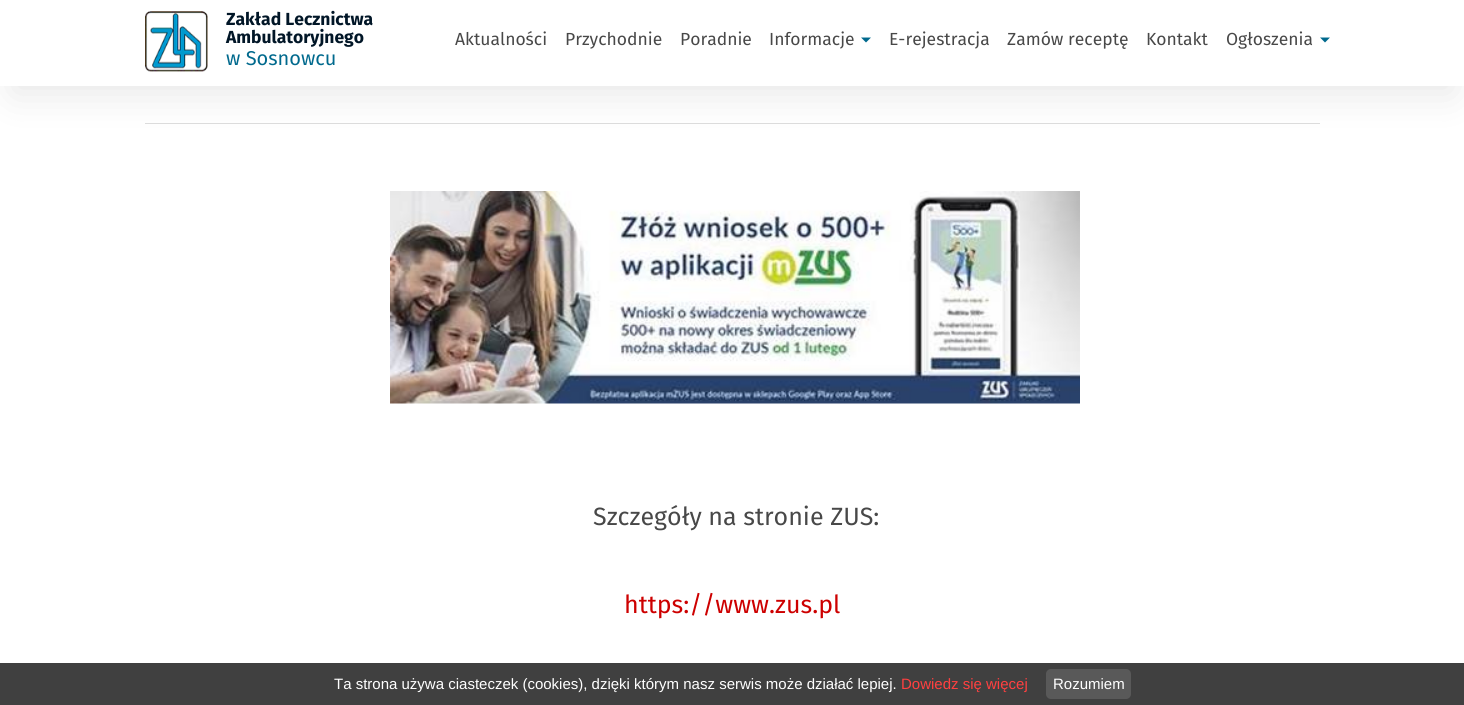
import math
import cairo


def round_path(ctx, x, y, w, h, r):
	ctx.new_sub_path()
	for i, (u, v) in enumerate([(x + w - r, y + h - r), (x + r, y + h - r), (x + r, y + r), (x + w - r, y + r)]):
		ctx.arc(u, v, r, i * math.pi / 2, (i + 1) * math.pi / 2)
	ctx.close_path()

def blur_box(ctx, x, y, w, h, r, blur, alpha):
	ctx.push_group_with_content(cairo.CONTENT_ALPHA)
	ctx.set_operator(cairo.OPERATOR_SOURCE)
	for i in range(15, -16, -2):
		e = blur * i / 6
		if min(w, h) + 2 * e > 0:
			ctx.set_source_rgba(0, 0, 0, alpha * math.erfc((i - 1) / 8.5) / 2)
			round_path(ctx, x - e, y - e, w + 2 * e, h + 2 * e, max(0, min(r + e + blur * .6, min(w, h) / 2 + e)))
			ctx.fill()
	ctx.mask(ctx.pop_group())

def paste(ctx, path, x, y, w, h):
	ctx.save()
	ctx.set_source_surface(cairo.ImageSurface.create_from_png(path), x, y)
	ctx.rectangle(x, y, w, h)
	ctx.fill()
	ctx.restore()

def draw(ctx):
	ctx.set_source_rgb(1, 1, 1)
	ctx.paint()
	ctx.set_source_rgb(0.867, 0.867, 0.867)
	ctx.rectangle(145, 123, 1175, 1)
	ctx.fill()
	ctx.set_source_rgb(0, 0, 0)
	blur_box(ctx, 13, -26, 1440, 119, 0, 19, 0.1)
	ctx.set_source_rgb(1, 1, 1)
	ctx.rectangle(0, 0, 1464, 86)
	ctx.fill()
	paste(ctx, 'media/1.png', 145, 11, 63, 61)
	ctx.select_font_face('Fira Sans', cairo.FONT_SLANT_NORMAL, cairo.FONT_WEIGHT_BOLD)
	ctx.set_font_size(17.5)
	ctx.set_source_rgb(0.004, 0.086, 0.153)
	ctx.move_to(226, 25)
	ctx.show_text('Zakład Lecznictwa')
	ctx.move_to(226, 43)
	ctx.show_text('Ambulatoryjnego')
	ctx.select_font_face('Fira Sans')
	ctx.set_font_size(20)
	ctx.set_source_rgb(0, 0.412, 0.553)
	ctx.move_to(226, 65)
	ctx.show_text('w Sosnowcu')
	ctx.set_font_size(17.5)
	ctx.set_source_rgb(0.282, 0.282, 0.282)
	for x, y, s in [
		(455, 45, 'Aktualności'),
		(565, 45, 'Przychodnie'),
		(680, 45, 'Poradnie'),
		(769, 45, 'Informacje'),
	]:
		ctx.move_to(x, y)
		ctx.show_text(s)
	ctx.set_source_rgb(0, 0.412, 0.553)
	ctx.new_path()
	ctx.move_to(861, 37.5)
	ctx.line_to(871, 37.5)
	ctx.line_to(866, 42.5)
	ctx.close_path()
	ctx.fill()
	ctx.set_source_rgb(0.282, 0.282, 0.282)
	for x, y, s in [
		(889, 45, 'E-rejestracja'),
		(1007, 45, 'Zamów receptę'),
		(1146, 45, 'Kontakt'),
		(1226, 45, 'Ogłoszenia'),
	]:
		ctx.move_to(x, y)
		ctx.show_text(s)
	ctx.set_source_rgb(0, 0.412, 0.553)
	ctx.new_path()
	ctx.move_to(1320, 37.5)
	ctx.line_to(1330, 37.5)
	ctx.line_to(1325, 42.5)
	ctx.close_path()
	ctx.fill()
	paste(ctx, 'media/2.png', 390, 191, 690, 213)
	ctx.set_font_size(25)
	ctx.set_source_rgb(0.282, 0.282, 0.282)
	ctx.move_to(593, 525)
	ctx.show_text('Szczegóły na stronie ZUS:')
	ctx.set_source_rgb(0.804, 0, 0)
	ctx.move_to(624, 613)
	ctx.show_text('https://www.zus.pl')
	ctx.set_source_rgb(0.251, 0.251, 0.251)
	ctx.rectangle(0, 663, 1464, 42)
	ctx.fill()
	ctx.select_font_face('Liberation Sans')
	ctx.set_font_size(15)
	ctx.set_source_rgb(1, 1, 1)
	ctx.move_to(334, 689)
	ctx.show_text('Ta strona używa ciasteczek (cookies), dzięki którym nasz serwis może działać lepiej.')
	ctx.set_source_rgb(1, 0.251, 0.251)
	ctx.move_to(901, 689)
	ctx.show_text('Dowiedz się więcej')
	ctx.set_source_rgb(0.349, 0.349, 0.349)
	round_path(ctx, 1046, 669, 85, 30, 5)
	ctx.fill()
	ctx.set_source_rgb(1, 1, 1)
	ctx.move_to(1053, 689)
	ctx.show_text('Rozumiem')


surface = cairo.ImageSurface(cairo.FORMAT_RGB24, 1464, 705)
ctx = cairo.Context(surface)
options = cairo.FontOptions()
options.set_hint_metrics(cairo.HINT_METRICS_OFF)
options.set_hint_style(cairo.HINT_STYLE_NONE)
ctx.set_font_options(options)
ctx.set_miter_limit(4)
draw(ctx)
surface.write_to_png('image.png')
